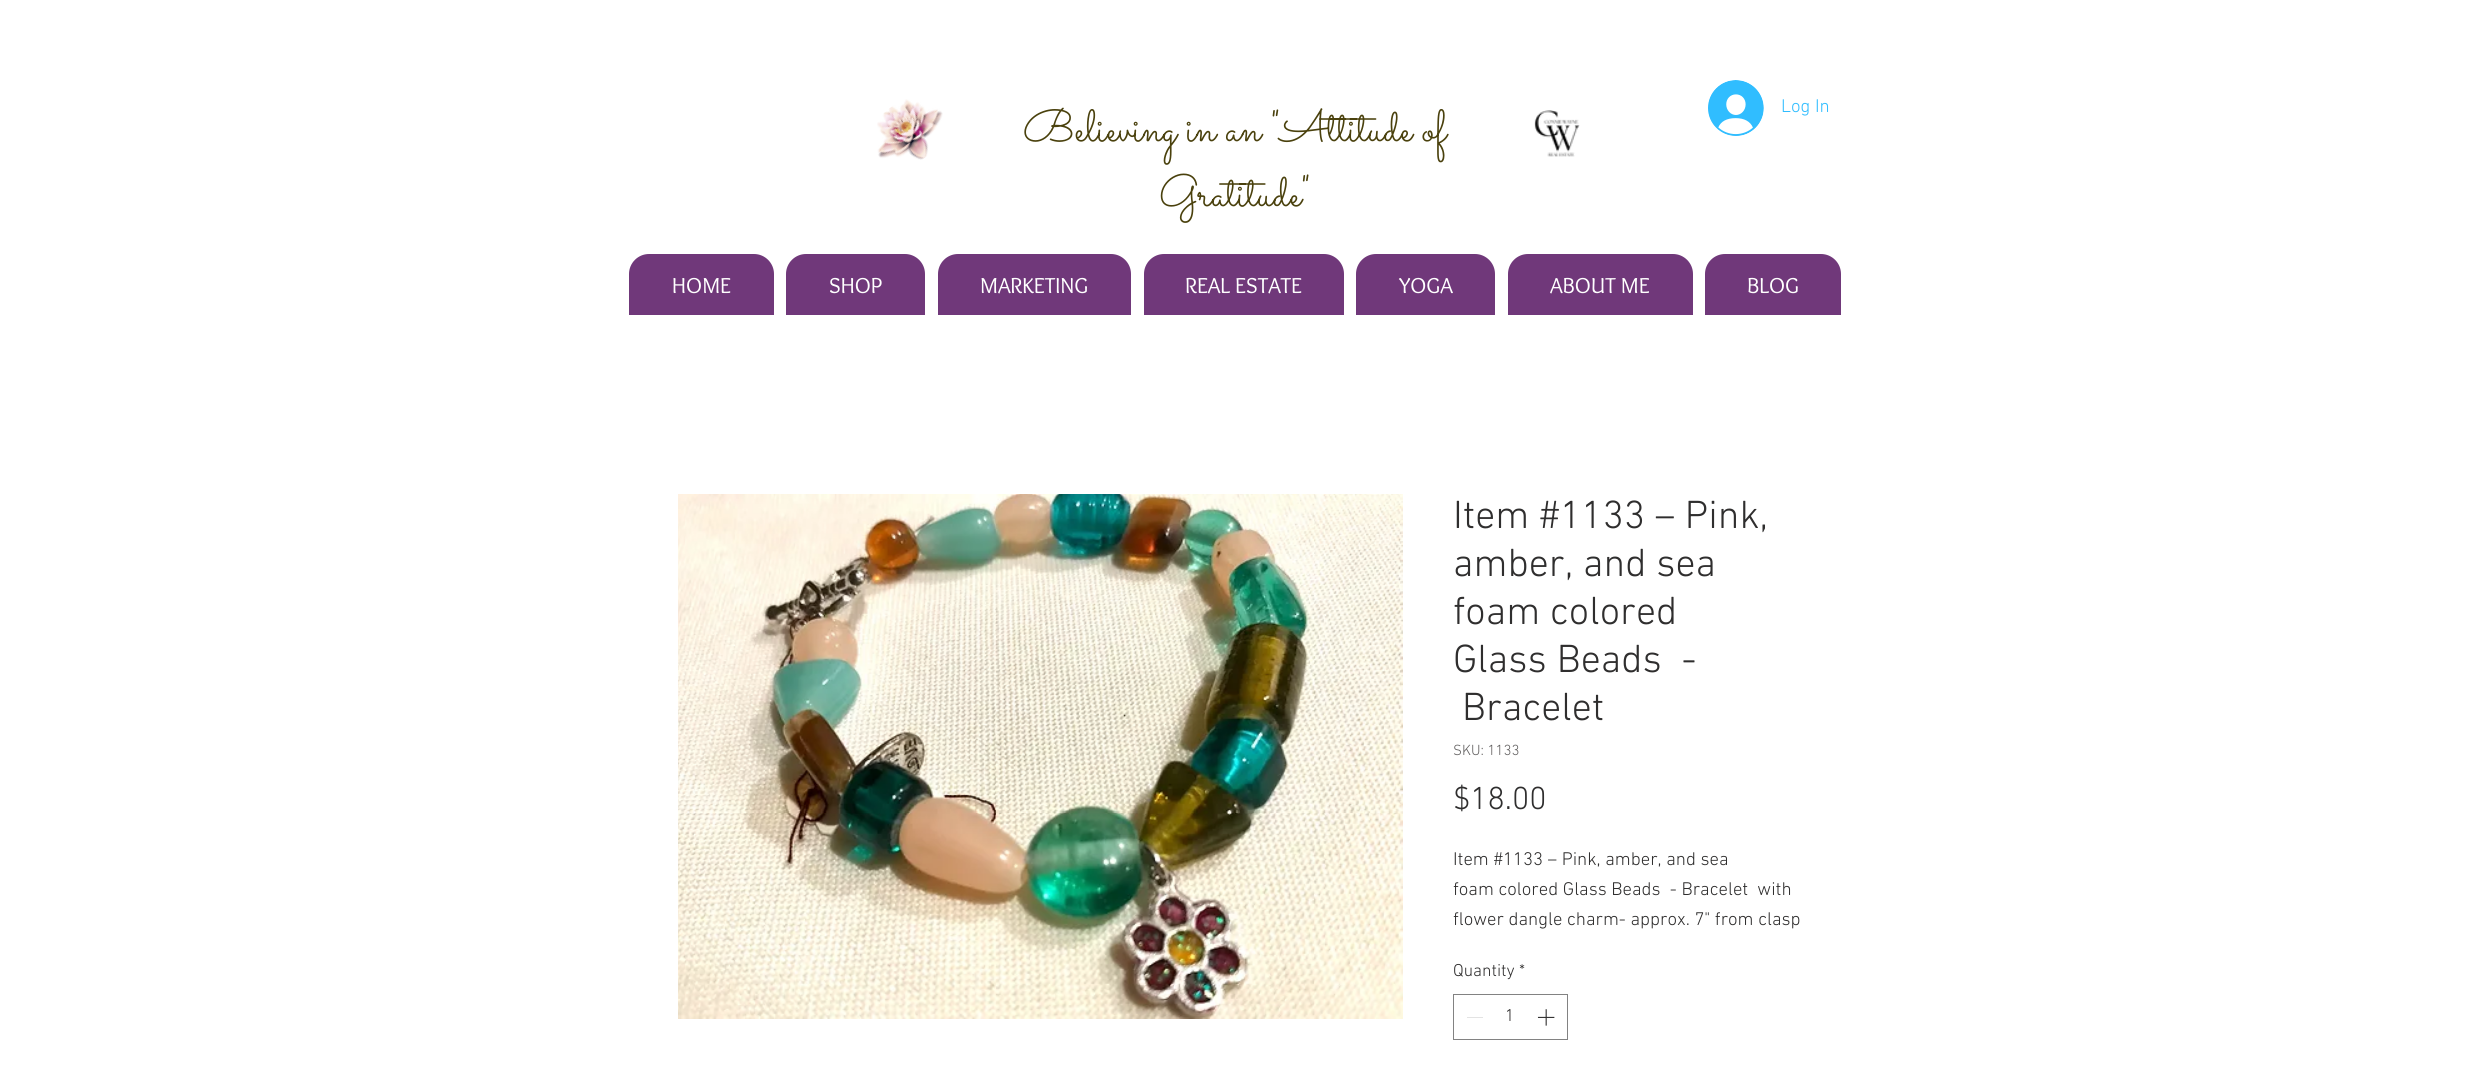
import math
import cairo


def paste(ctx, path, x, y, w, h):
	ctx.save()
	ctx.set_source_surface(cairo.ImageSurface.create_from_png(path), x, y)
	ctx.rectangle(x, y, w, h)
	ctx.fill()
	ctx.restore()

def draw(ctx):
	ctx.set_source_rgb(1, 1, 1)
	ctx.paint()
	paste(ctx, 'media/1.png', 877, 99, 66, 61)
	ctx.select_font_face('Sacramento')
	ctx.set_font_size(45)
	ctx.set_source_rgb(0.29, 0.255, 0.051)
	ctx.move_to(1023, 141)
	ctx.show_text('Believing in an "Attitude of')
	ctx.move_to(1159, 206)
	ctx.show_text('Gratitude"')
	paste(ctx, 'media/2.png', 1534, 110, 46, 47)
	paste(ctx, 'media/3.png', 1708, 80, 56, 56)
	ctx.select_font_face('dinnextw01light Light')
	ctx.set_font_size(18.75)
	ctx.set_source_rgb(0.188, 0.741, 1)
	ctx.move_to(1781, 112)
	ctx.show_text('Log In')
	ctx.set_source_rgb(0.439, 0.22, 0.478)
	ctx.new_path()
	ctx.move_to(649, 254)
	ctx.line_to(754, 254)
	ctx.curve_to(765, 254, 774, 263, 774, 274)
	ctx.line_to(774, 316)
	ctx.line_to(629, 316)
	ctx.line_to(629, 274)
	ctx.curve_to(629, 263, 638, 254, 649, 254)
	ctx.close_path()
	ctx.fill()
	ctx.select_font_face('Overlock')
	ctx.set_font_size(22.5)
	ctx.set_source_rgb(1, 1, 1)
	ctx.move_to(672, 293)
	ctx.show_text('HOME')
	ctx.set_source_rgb(0.439, 0.22, 0.478)
	ctx.new_path()
	ctx.move_to(806, 254)
	ctx.line_to(905, 254)
	ctx.curve_to(916, 254, 925, 263, 925, 274)
	ctx.line_to(925, 316)
	ctx.line_to(786, 316)
	ctx.line_to(786, 274)
	ctx.curve_to(786, 263, 795, 254, 806, 254)
	ctx.close_path()
	ctx.fill()
	ctx.set_source_rgb(1, 1, 1)
	ctx.move_to(829, 293)
	ctx.show_text('SHOP')
	ctx.set_source_rgb(0.439, 0.22, 0.478)
	ctx.new_path()
	ctx.move_to(958, 254)
	ctx.line_to(1111, 254)
	ctx.curve_to(1122, 254, 1131, 263, 1131, 274)
	ctx.line_to(1131, 316)
	ctx.line_to(938, 316)
	ctx.line_to(938, 274)
	ctx.curve_to(938, 263, 947, 254, 958, 254)
	ctx.close_path()
	ctx.fill()
	ctx.set_source_rgb(1, 1, 1)
	ctx.move_to(980, 293)
	ctx.show_text('MARKETING')
	ctx.set_source_rgb(0.439, 0.22, 0.478)
	ctx.new_path()
	ctx.move_to(1164, 254)
	ctx.line_to(1324, 254)
	ctx.curve_to(1335, 254, 1344, 263, 1344, 274)
	ctx.line_to(1344, 316)
	ctx.line_to(1144, 316)
	ctx.line_to(1144, 274)
	ctx.curve_to(1144, 263, 1153, 254, 1164, 254)
	ctx.close_path()
	ctx.fill()
	ctx.set_source_rgb(1, 1, 1)
	ctx.move_to(1185, 293)
	ctx.show_text('REAL ESTATE')
	ctx.set_source_rgb(0.439, 0.22, 0.478)
	ctx.new_path()
	ctx.move_to(1376, 254)
	ctx.line_to(1475, 254)
	ctx.curve_to(1486, 254, 1495, 263, 1495, 274)
	ctx.line_to(1495, 316)
	ctx.line_to(1356, 316)
	ctx.line_to(1356, 274)
	ctx.curve_to(1356, 263, 1365, 254, 1376, 254)
	ctx.close_path()
	ctx.fill()
	ctx.set_source_rgb(1, 1, 1)
	ctx.move_to(1399, 293)
	ctx.show_text('YOGA')
	ctx.set_source_rgb(0.439, 0.22, 0.478)
	ctx.new_path()
	ctx.move_to(1528, 254)
	ctx.line_to(1673, 254)
	ctx.curve_to(1684, 254, 1693, 263, 1693, 274)
	ctx.line_to(1693, 316)
	ctx.line_to(1508, 316)
	ctx.line_to(1508, 274)
	ctx.curve_to(1508, 263, 1517, 254, 1528, 254)
	ctx.close_path()
	ctx.fill()
	ctx.set_source_rgb(1, 1, 1)
	ctx.move_to(1550, 293)
	ctx.show_text('ABOUT ME')
	ctx.set_source_rgb(0.439, 0.22, 0.478)
	ctx.new_path()
	ctx.move_to(1725, 254)
	ctx.line_to(1821, 254)
	ctx.curve_to(1832, 254, 1841, 263, 1841, 274)
	ctx.line_to(1841, 316)
	ctx.line_to(1705, 316)
	ctx.line_to(1705, 274)
	ctx.curve_to(1705, 263, 1714, 254, 1725, 254)
	ctx.close_path()
	ctx.fill()
	ctx.set_source_rgb(1, 1, 1)
	ctx.move_to(1747, 293)
	ctx.show_text('BLOG')
	ctx.rectangle(629, 315, 1212, 1)
	ctx.fill()
	paste(ctx, 'media/4.png', 678, 494, 725, 525)
	ctx.select_font_face('dinnextw01light Light')
	ctx.set_font_size(40)
	ctx.set_source_rgb(0.184, 0.18, 0.18)
	for x, y, s in [
		(1453, 528, 'Item #1133 – Pink,'),
		(1453, 576, 'amber, and sea'),
		(1453, 624, 'foam colored'),
		(1453, 672, 'Glass Beads  -'),
		(1462, 720, 'Bracelet'),
	]:
		ctx.move_to(x, y)
		ctx.show_text(s)
	ctx.set_font_size(15)
	ctx.set_source_rgb(0.376, 0.369, 0.369)
	ctx.move_to(1453, 755)
	ctx.show_text('SKU: 1133')
	ctx.set_font_size(32.5)
	ctx.set_source_rgb(0.184, 0.18, 0.18)
	ctx.move_to(1453, 809)
	ctx.show_text('$18.00')
	ctx.set_font_size(18.75)
	for x, y, s in [
		(1453, 865, 'Item #1133 – Pink, amber, and sea'),
		(1453, 895, 'foam colored Glass Beads  - Bracelet  with'),
		(1453, 925, 'flower dangle charm- approx. 7" from clasp'),
	]:
		ctx.move_to(x, y)
		ctx.show_text(s)
	ctx.set_font_size(17.5)
	ctx.move_to(1453, 976)
	ctx.show_text('Quantity')
	ctx.move_to(1519, 976)
	ctx.show_text('*')
	ctx.rectangle(1453.5, 994.5, 114, 45)
	ctx.set_source_rgb(0.51, 0.51, 0.51)
	ctx.set_line_width(1)
	ctx.stroke()
	ctx.set_source_rgb(0.89, 0.89, 0.89)
	ctx.rectangle(1467, 1017, 16, 1)
	ctx.fill()
	ctx.set_source_rgb(0.184, 0.18, 0.18)
	ctx.move_to(1505, 1021)
	ctx.show_text('1')
	paste(ctx, 'media/5.png', 1537, 1009, 18, 17)


surface = cairo.ImageSurface(cairo.FORMAT_RGB24, 2479, 1070)
ctx = cairo.Context(surface)
options = cairo.FontOptions()
options.set_hint_metrics(cairo.HINT_METRICS_OFF)
options.set_hint_style(cairo.HINT_STYLE_NONE)
ctx.set_font_options(options)
ctx.set_miter_limit(4)
draw(ctx)
surface.write_to_png('image.png')
